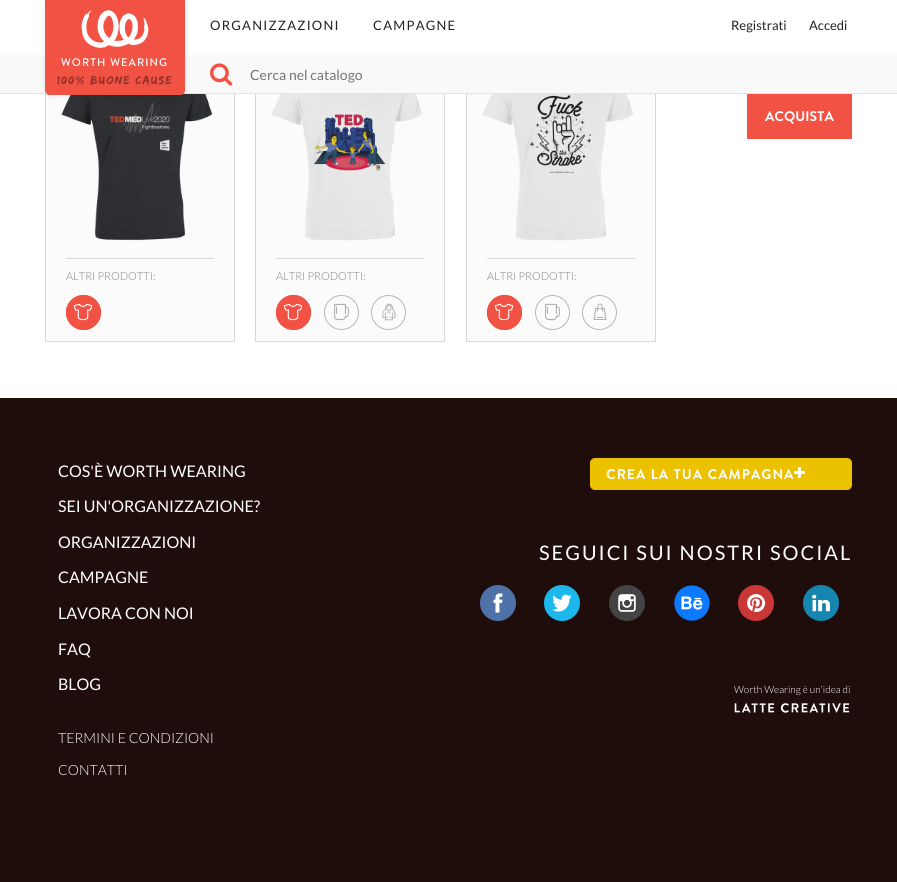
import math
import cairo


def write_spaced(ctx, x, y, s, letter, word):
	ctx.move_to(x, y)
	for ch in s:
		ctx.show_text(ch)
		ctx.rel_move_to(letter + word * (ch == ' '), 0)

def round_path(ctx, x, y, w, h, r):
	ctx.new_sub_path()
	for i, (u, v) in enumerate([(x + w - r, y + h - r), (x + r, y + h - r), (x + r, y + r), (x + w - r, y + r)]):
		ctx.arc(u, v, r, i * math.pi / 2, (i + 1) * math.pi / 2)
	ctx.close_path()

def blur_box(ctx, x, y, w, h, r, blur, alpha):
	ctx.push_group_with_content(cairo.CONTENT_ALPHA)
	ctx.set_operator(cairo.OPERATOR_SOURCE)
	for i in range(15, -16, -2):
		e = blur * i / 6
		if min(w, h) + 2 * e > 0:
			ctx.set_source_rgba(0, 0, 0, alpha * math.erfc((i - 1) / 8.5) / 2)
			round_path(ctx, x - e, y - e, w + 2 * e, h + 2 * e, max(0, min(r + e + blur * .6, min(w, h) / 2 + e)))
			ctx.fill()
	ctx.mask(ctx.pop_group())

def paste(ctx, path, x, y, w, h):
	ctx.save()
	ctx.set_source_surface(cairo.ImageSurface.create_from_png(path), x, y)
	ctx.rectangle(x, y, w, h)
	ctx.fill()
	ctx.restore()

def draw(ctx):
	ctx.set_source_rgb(1, 1, 1)
	ctx.paint()
	ctx.rectangle(45.5, 21.5, 189, 320)
	ctx.set_source_rgb(0.847, 0.847, 0.847)
	ctx.set_line_width(1)
	ctx.stroke()
	ctx.rectangle(255.5, 21.5, 189, 320)
	ctx.stroke()
	ctx.rectangle(466.5, 21.5, 189, 320)
	ctx.stroke()
	ctx.set_source_rgb(1, 1, 1)
	ctx.rectangle(45, 21, 611, 34)
	ctx.fill()
	ctx.select_font_face('Lato')
	ctx.set_font_size(13)
	ctx.set_source_rgb(0.133, 0.133, 0.133)
	write_spaced(ctx, 210, 30, 'ORGANIZZAZIONI', 1.25, 0)
	write_spaced(ctx, 373, 30, 'CAMPAGNE', 1.25, 0)
	ctx.move_to(731, 30)
	ctx.show_text('Registrati')
	ctx.move_to(809, 30)
	ctx.show_text('Accedi')
	ctx.set_source_rgb(0.973, 0.973, 0.973)
	ctx.rectangle(0, 55, 897, 38)
	ctx.fill()
	ctx.set_source_rgb(0.894, 0.894, 0.894)
	ctx.rectangle(0, 93, 897, 1)
	ctx.fill()
	ctx.set_source_rgb(0.984, 0.984, 0.984)
	ctx.rectangle(46, 94, 188, 247)
	ctx.fill()
	paste(ctx, 'media/3.png', 61, 94, 152, 147)
	ctx.set_source_rgb(0, 0, 0)
	blur_box(ctx, 45, 0, 140, 95, 5, 3, 0.1)
	ctx.set_source_rgb(0.945, 0.322, 0.263)
	ctx.new_path()
	ctx.move_to(45, 0)
	ctx.line_to(185, 0)
	ctx.line_to(185, 90)
	ctx.curve_to(185, 93, 183, 95, 180, 95)
	ctx.line_to(50, 95)
	ctx.curve_to(47, 95, 45, 93, 45, 90)
	ctx.close_path()
	ctx.fill()
	paste(ctx, 'media/1.png', 81, 10, 68, 38)
	ctx.select_font_face('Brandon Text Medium')
	ctx.set_font_size(11)
	ctx.set_source_rgb(1, 1, 1)
	write_spaced(ctx, 61, 66, 'WORTH WEARING', 1.1, 0)
	ctx.select_font_face('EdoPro')
	ctx.set_font_size(12)
	ctx.set_source_rgb(0.565, 0.192, 0.161)
	write_spaced(ctx, 57, 84, '100% BUONE CAUSE', 1.25, 0)
	paste(ctx, 'media/2.png', 210, 63, 23, 23)
	ctx.select_font_face('Lato')
	ctx.set_font_size(14)
	ctx.set_source_rgb(0.459, 0.459, 0.459)
	ctx.move_to(250, 80)
	ctx.show_text('Cerca nel catalogo')
	ctx.set_source_rgb(0.945, 0.322, 0.263)
	ctx.rectangle(747, 94, 105, 45)
	ctx.fill()
	ctx.select_font_face('Brandon Text', cairo.FONT_SLANT_NORMAL, cairo.FONT_WEIGHT_BOLD)
	ctx.set_source_rgb(1, 1, 1)
	ctx.move_to(765, 121)
	ctx.show_text('ACQUISTA')
	ctx.set_source_rgb(0.847, 0.847, 0.847)
	ctx.rectangle(66, 258, 148, 1)
	ctx.fill()
	ctx.select_font_face('Lato Light')
	ctx.set_font_size(11)
	ctx.set_source_rgb(0.506, 0.506, 0.506)
	ctx.move_to(66, 280)
	ctx.show_text('ALTRI PRODOTTI:')
	ctx.set_source_rgb(0.945, 0.322, 0.263)
	ctx.new_path()
	ctx.arc(83.5, 312.5, 17.5, 0, 2 * math.pi)
	ctx.fill()
	paste(ctx, 'media/4.png', 73, 303, 20, 18)
	ctx.arc(83.5, 312.5, 17, 0, 2 * math.pi)
	ctx.stroke()
	ctx.set_source_rgb(0.984, 0.984, 0.984)
	ctx.rectangle(256, 94, 188, 247)
	ctx.fill()
	paste(ctx, 'media/5.png', 271, 94, 152, 147)
	ctx.set_source_rgb(0.847, 0.847, 0.847)
	ctx.rectangle(276, 258, 148, 1)
	ctx.fill()
	ctx.set_source_rgb(0.506, 0.506, 0.506)
	ctx.move_to(276, 280)
	ctx.show_text('ALTRI PRODOTTI:')
	ctx.set_source_rgb(0.945, 0.322, 0.263)
	ctx.new_path()
	ctx.arc(293.5, 312.5, 17.5, 0, 2 * math.pi)
	ctx.fill()
	paste(ctx, 'media/4.png', 283, 303, 20, 18)
	ctx.arc(293.5, 312.5, 17, 0, 2 * math.pi)
	ctx.stroke()
	paste(ctx, 'media/6.png', 334, 303, 15, 18)
	ctx.arc(341.5, 312.5, 17, 0, 2 * math.pi)
	ctx.set_source_rgb(0.718, 0.718, 0.718)
	ctx.stroke()
	paste(ctx, 'media/7.png', 382, 303, 14, 18)
	ctx.arc(388.5, 312.5, 17, 0, 2 * math.pi)
	ctx.stroke()
	ctx.set_source_rgb(0.984, 0.984, 0.984)
	ctx.rectangle(467, 94, 188, 247)
	ctx.fill()
	paste(ctx, 'media/8.png', 482, 94, 152, 147)
	ctx.set_source_rgb(0.847, 0.847, 0.847)
	ctx.rectangle(487, 258, 148, 1)
	ctx.fill()
	ctx.set_source_rgb(0.506, 0.506, 0.506)
	ctx.move_to(487, 280)
	ctx.show_text('ALTRI PRODOTTI:')
	ctx.set_source_rgb(0.945, 0.322, 0.263)
	ctx.new_path()
	ctx.arc(504.5, 312.5, 17.5, 0, 2 * math.pi)
	ctx.fill()
	paste(ctx, 'media/4.png', 494, 303, 20, 18)
	ctx.arc(504.5, 312.5, 17, 0, 2 * math.pi)
	ctx.stroke()
	paste(ctx, 'media/6.png', 545, 303, 15, 18)
	ctx.arc(552.5, 312.5, 17, 0, 2 * math.pi)
	ctx.set_source_rgb(0.718, 0.718, 0.718)
	ctx.stroke()
	paste(ctx, 'media/9.png', 593, 303, 14, 17)
	ctx.arc(599.5, 312.5, 17, 0, 2 * math.pi)
	ctx.stroke()
	ctx.set_source_rgb(0.122, 0.051, 0.043)
	ctx.rectangle(0, 398, 897, 484)
	ctx.fill()
	ctx.select_font_face('Lato')
	ctx.set_font_size(16)
	ctx.set_source_rgb(1, 1, 1)
	for x, y, s in [
		(58, 477, 'COS\'È WORTH WEARING'),
		(58, 512, 'SEI UN\'ORGANIZZAZIONE?'),
		(58, 548, 'ORGANIZZAZIONI'),
		(58, 583, 'CAMPAGNE'),
		(58, 619, 'LAVORA CON NOI'),
		(58, 655, 'FAQ'),
		(58, 690, 'BLOG'),
	]:
		ctx.move_to(x, y)
		ctx.show_text(s)
	ctx.select_font_face('Lato Light')
	ctx.set_font_size(14)
	ctx.move_to(58, 743)
	ctx.show_text('TERMINI E CONDIZIONI')
	ctx.move_to(58, 775)
	ctx.show_text('CONTATTI')
	ctx.set_source_rgb(0.922, 0.757, 0)
	round_path(ctx, 590, 458, 262, 32, 5)
	ctx.fill()
	ctx.select_font_face('Brandon Text', cairo.FONT_SLANT_NORMAL, cairo.FONT_WEIGHT_BOLD)
	ctx.set_source_rgb(1, 1, 1)
	write_spaced(ctx, 606, 479, 'CREA LA TUA CAMPAGNA', 1, 0)
	paste(ctx, 'media/10.png', 794, 467, 11, 11)
	ctx.select_font_face('Lato')
	ctx.set_font_size(20)
	write_spaced(ctx, 539, 560, 'SEGUICI SUI NOSTRI SOCIAL', 2, 0)
	paste(ctx, 'media/11.png', 480, 585, 36, 36)
	paste(ctx, 'media/12.png', 544, 585, 36, 36)
	paste(ctx, 'media/13.png', 609, 585, 36, 36)
	paste(ctx, 'media/14.png', 674, 585, 36, 36)
	paste(ctx, 'media/15.png', 738, 585, 36, 36)
	paste(ctx, 'media/16.png', 803, 585, 36, 36)
	ctx.select_font_face('Lato Light')
	ctx.set_font_size(10)
	ctx.move_to(734, 693)
	ctx.show_text('Worth Wearing è un\'idea di')
	paste(ctx, 'media/17.png', 734, 703, 116, 10)


surface = cairo.ImageSurface(cairo.FORMAT_RGB24, 897, 882)
ctx = cairo.Context(surface)
options = cairo.FontOptions()
options.set_hint_metrics(cairo.HINT_METRICS_OFF)
options.set_hint_style(cairo.HINT_STYLE_NONE)
ctx.set_font_options(options)
ctx.set_miter_limit(4)
draw(ctx)
surface.write_to_png('image.png')
